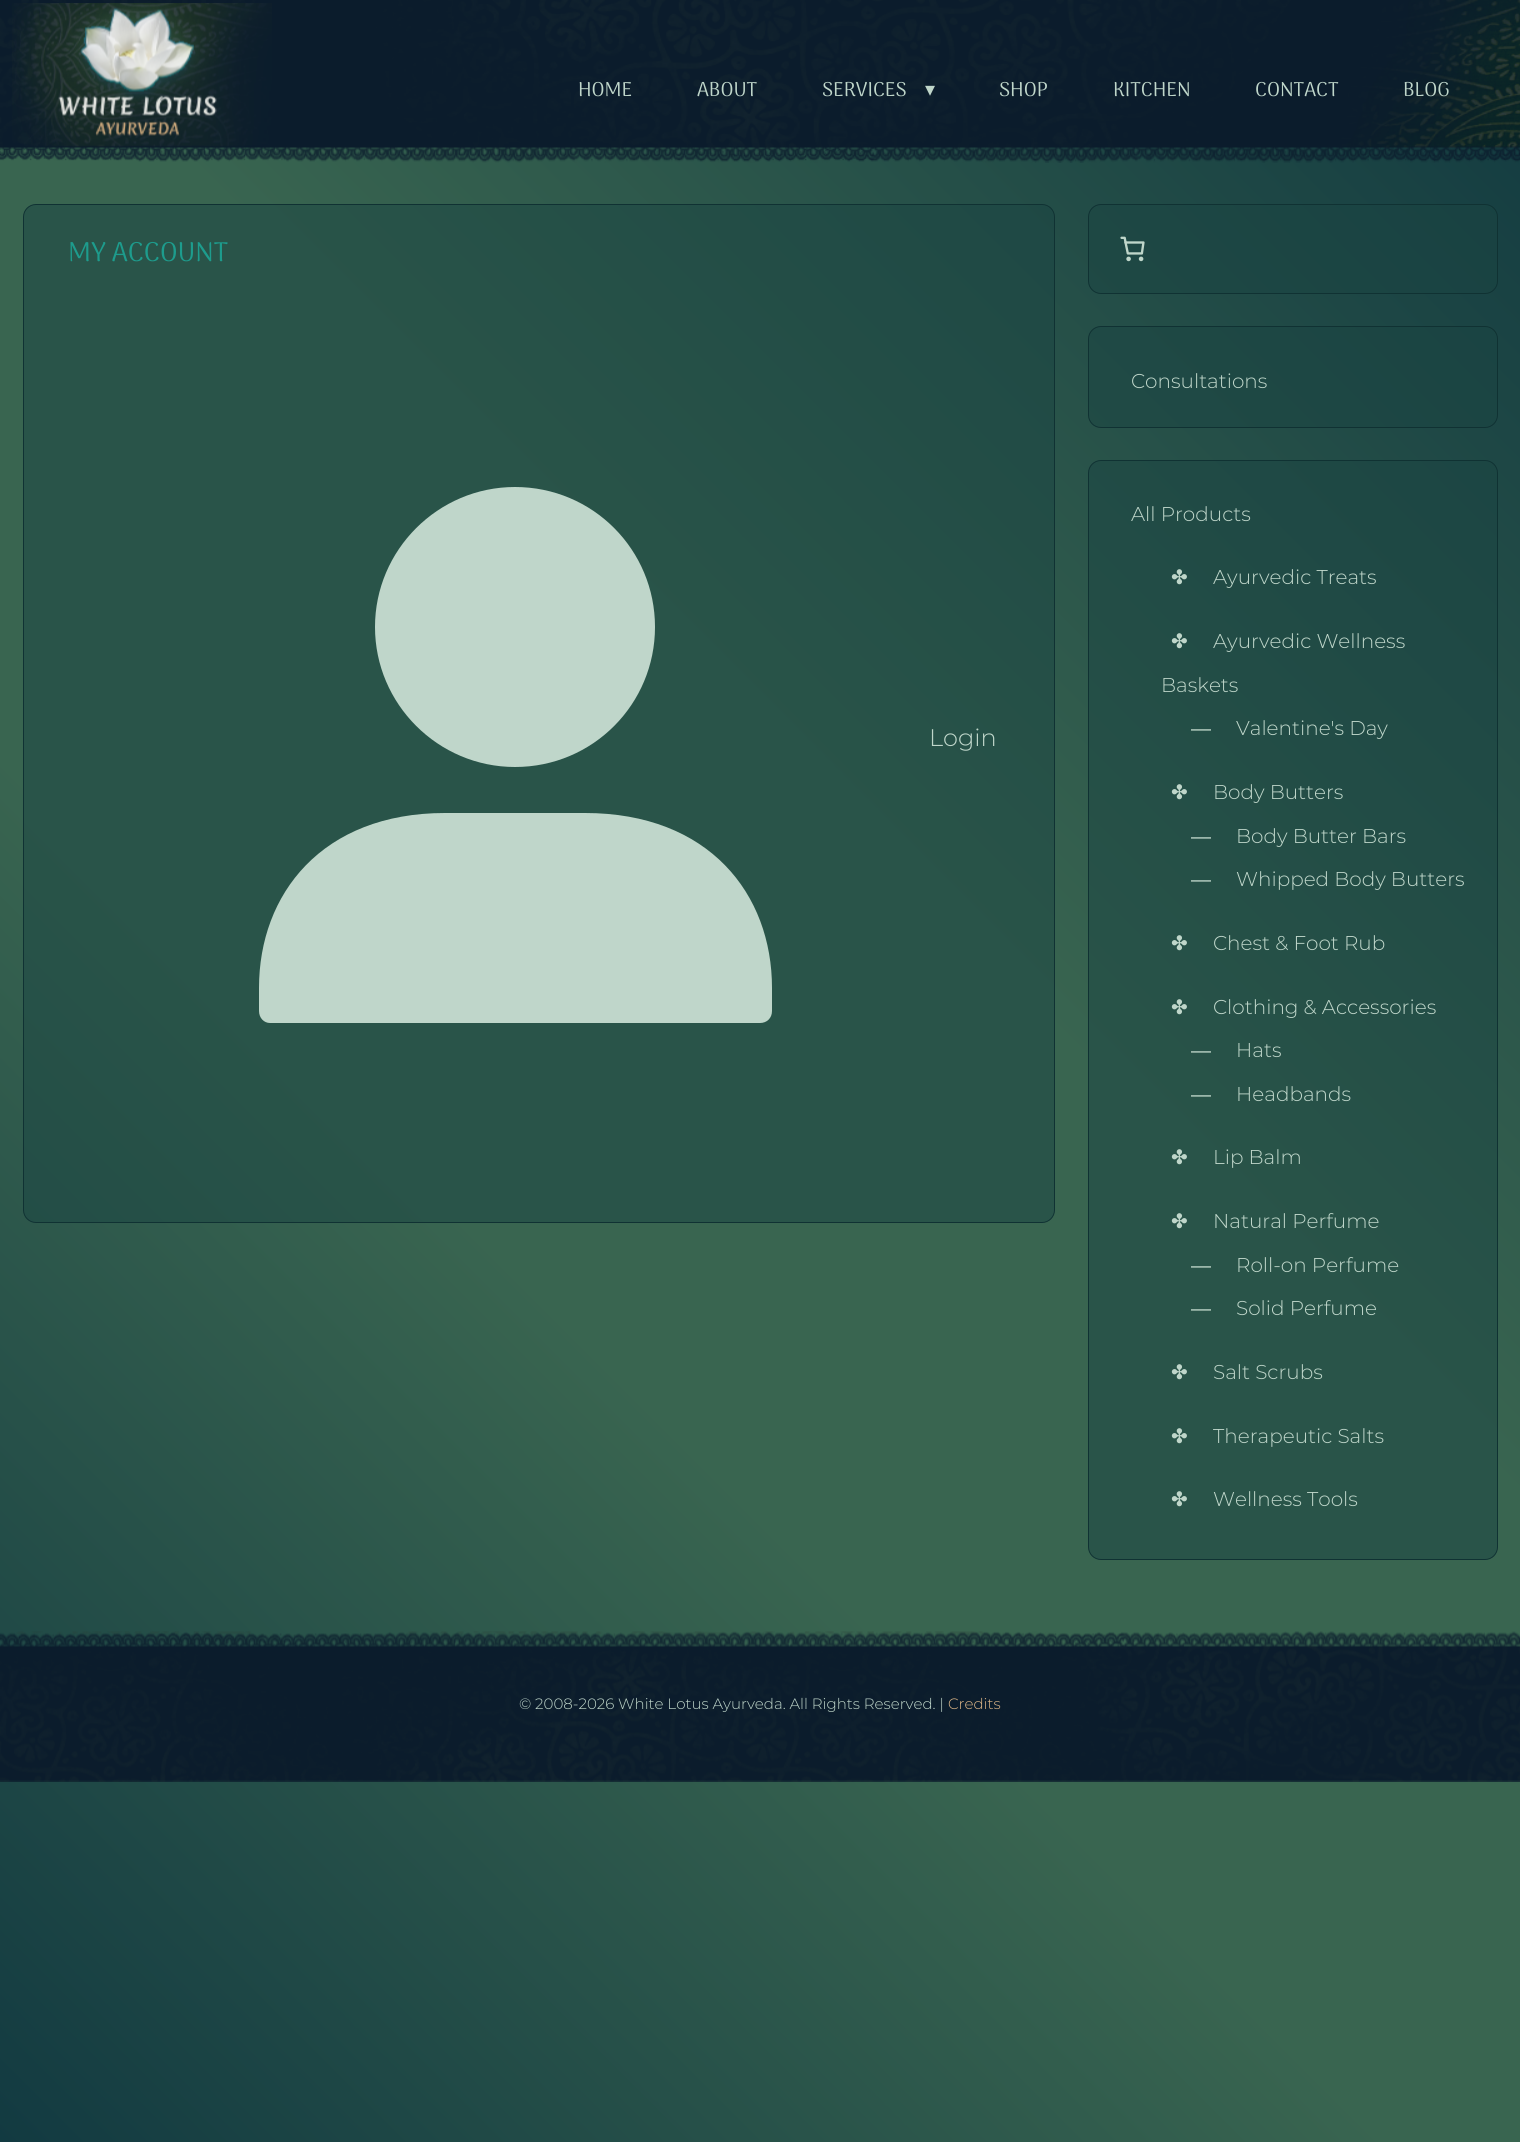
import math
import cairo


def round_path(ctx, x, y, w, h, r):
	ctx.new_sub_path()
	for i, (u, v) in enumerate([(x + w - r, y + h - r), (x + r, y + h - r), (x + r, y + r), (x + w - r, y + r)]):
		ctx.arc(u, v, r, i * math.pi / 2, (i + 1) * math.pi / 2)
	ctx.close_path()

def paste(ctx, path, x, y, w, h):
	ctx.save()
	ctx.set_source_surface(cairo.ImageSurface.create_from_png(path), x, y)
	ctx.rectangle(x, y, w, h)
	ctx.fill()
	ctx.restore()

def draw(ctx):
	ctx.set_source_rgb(1, 1, 1)
	ctx.paint()
	gradient = cairo.LinearGradient(-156, 1987, 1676, 156)
	gradient.add_color_stop_rgba(0, 0.071, 0.227, 0.255, 1)
	gradient.add_color_stop_rgba(0.38, 0.224, 0.396, 0.314, 1)
	gradient.add_color_stop_rgba(0.59, 0.224, 0.396, 0.314, 1)
	gradient.add_color_stop_rgba(1, 0.067, 0.224, 0.251, 1)
	ctx.set_source(gradient)
	ctx.rectangle(0, 147, 1520, 1995)
	ctx.fill()
	paste(ctx, 'media/1.png', 0, 0, 1520, 163)
	paste(ctx, 'media/2.png', 12, 3, 260, 144)
	ctx.select_font_face('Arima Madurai')
	ctx.set_font_size(20)
	ctx.set_source_rgb(0.749, 0.839, 0.792)
	for x, y, s in [
		(578, 96, 'HOME'),
		(697, 96, 'ABOUT'),
		(822, 96, 'SERVICES'),
	]:
		ctx.move_to(x, y)
		ctx.show_text(s)
	ctx.select_font_face('DejaVu Sans')
	ctx.move_to(925, 96)
	ctx.show_text('▾')
	ctx.select_font_face('Arima Madurai')
	for x, y, s in [
		(999, 96, 'SHOP'),
		(1113, 96, 'KITCHEN'),
		(1255, 96, 'CONTACT'),
		(1403, 96, 'BLOG'),
	]:
		ctx.move_to(x, y)
		ctx.show_text(s)
	ctx.set_source_rgba(0.102, 0.267, 0.263, 0.5)
	round_path(ctx, 23.5, 204.5, 1031, 1018, 12.5)
	ctx.fill_preserve()
	ctx.set_source_rgb(0.063, 0.196, 0.2)
	ctx.set_line_width(1)
	ctx.stroke()
	ctx.set_font_size(27)
	ctx.set_source_rgb(0.114, 0.612, 0.553)
	ctx.move_to(68, 261)
	ctx.show_text('MY ACCOUNT')
	ctx.set_source_rgb(0.749, 0.839, 0.792)
	ctx.set_fill_rule(cairo.FILL_RULE_EVEN_ODD)
	ctx.new_path()
	ctx.move_to(515, 767)
	ctx.curve_to(593, 767, 655, 704, 655, 627)
	ctx.curve_to(655, 550, 593, 487, 515, 487)
	ctx.curve_to(438, 487, 375, 550, 375, 627)
	ctx.curve_to(375, 704, 438, 767, 515, 767)
	ctx.close_path()
	ctx.move_to(259, 1011)
	ctx.curve_to(259, 1018, 264, 1023, 270, 1023)
	ctx.line_to(760, 1023)
	ctx.curve_to(767, 1023, 772, 1018, 772, 1011)
	ctx.line_to(772, 988)
	ctx.curve_to(772, 894, 709, 813, 585, 813)
	ctx.line_to(445, 813)
	ctx.curve_to(322, 813, 259, 894, 259, 988)
	ctx.close_path()
	ctx.fill()
	ctx.select_font_face('Montserrat Light')
	ctx.set_font_size(24)
	ctx.move_to(929, 746)
	ctx.show_text('Login')
	ctx.set_source_rgba(0.102, 0.267, 0.263, 0.5)
	round_path(ctx, 1088.5, 204.5, 409, 89, 12.5)
	ctx.fill_preserve()
	ctx.set_source_rgb(0.063, 0.196, 0.2)
	ctx.stroke()
	paste(ctx, 'media/3.png', 1120, 236, 25, 26)
	ctx.set_source_rgba(0.102, 0.267, 0.263, 0.5)
	round_path(ctx, 1088.5, 326.5, 409, 101, 12.5)
	ctx.fill_preserve()
	ctx.set_source_rgb(0.063, 0.196, 0.2)
	ctx.stroke()
	ctx.set_font_size(20)
	ctx.set_source_rgb(0.749, 0.839, 0.792)
	ctx.move_to(1131, 388)
	ctx.show_text('Consultations')
	ctx.set_source_rgba(0.102, 0.267, 0.263, 0.5)
	round_path(ctx, 1088.5, 460.5, 409, 1099, 12.5)
	ctx.fill_preserve()
	ctx.set_source_rgb(0.063, 0.196, 0.2)
	ctx.stroke()
	ctx.set_source_rgb(0.749, 0.839, 0.792)
	ctx.move_to(1131, 521)
	ctx.show_text('All Products')
	ctx.select_font_face('DejaVu Sans')
	ctx.move_to(1171, 584)
	ctx.show_text('✤')
	ctx.select_font_face('Montserrat Light')
	ctx.move_to(1213, 584)
	ctx.show_text('Ayurvedic Treats')
	ctx.select_font_face('DejaVu Sans')
	ctx.move_to(1171, 648)
	ctx.show_text('✤')
	ctx.select_font_face('Montserrat Light')
	ctx.move_to(1213, 648)
	ctx.show_text('Ayurvedic Wellness')
	ctx.move_to(1161, 692)
	ctx.show_text('Baskets')
	ctx.select_font_face('Liberation Sans')
	ctx.move_to(1191, 735)
	ctx.show_text('―')
	ctx.select_font_face('Montserrat Light')
	ctx.move_to(1236, 735)
	ctx.show_text('Valentine\'s Day')
	ctx.select_font_face('DejaVu Sans')
	ctx.move_to(1171, 799)
	ctx.show_text('✤')
	ctx.select_font_face('Montserrat Light')
	ctx.move_to(1213, 799)
	ctx.show_text('Body Butters')
	ctx.select_font_face('Liberation Sans')
	ctx.move_to(1191, 843)
	ctx.show_text('―')
	ctx.select_font_face('Montserrat Light')
	ctx.move_to(1236, 843)
	ctx.show_text('Body Butter Bars')
	ctx.select_font_face('Liberation Sans')
	ctx.move_to(1191, 886)
	ctx.show_text('―')
	ctx.select_font_face('Montserrat Light')
	ctx.move_to(1236, 886)
	ctx.show_text('Whipped Body Butters')
	ctx.select_font_face('DejaVu Sans')
	ctx.move_to(1171, 950)
	ctx.show_text('✤')
	ctx.select_font_face('Montserrat Light')
	ctx.move_to(1213, 950)
	ctx.show_text('Chest & Foot Rub')
	ctx.select_font_face('DejaVu Sans')
	ctx.move_to(1171, 1014)
	ctx.show_text('✤')
	ctx.select_font_face('Montserrat Light')
	ctx.move_to(1213, 1014)
	ctx.show_text('Clothing & Accessories')
	ctx.select_font_face('Liberation Sans')
	ctx.move_to(1191, 1057)
	ctx.show_text('―')
	ctx.select_font_face('Montserrat Light')
	ctx.move_to(1236, 1057)
	ctx.show_text('Hats')
	ctx.select_font_face('Liberation Sans')
	ctx.move_to(1191, 1101)
	ctx.show_text('―')
	ctx.select_font_face('Montserrat Light')
	ctx.move_to(1236, 1101)
	ctx.show_text('Headbands')
	ctx.select_font_face('DejaVu Sans')
	ctx.move_to(1171, 1164)
	ctx.show_text('✤')
	ctx.select_font_face('Montserrat Light')
	ctx.move_to(1213, 1164)
	ctx.show_text('Lip Balm')
	ctx.select_font_face('DejaVu Sans')
	ctx.move_to(1171, 1228)
	ctx.show_text('✤')
	ctx.select_font_face('Montserrat Light')
	ctx.move_to(1213, 1228)
	ctx.show_text('Natural Perfume')
	ctx.select_font_face('Liberation Sans')
	ctx.move_to(1191, 1272)
	ctx.show_text('―')
	ctx.select_font_face('Montserrat Light')
	ctx.move_to(1236, 1272)
	ctx.show_text('Roll-on Perfume')
	ctx.select_font_face('Liberation Sans')
	ctx.move_to(1191, 1315)
	ctx.show_text('―')
	ctx.select_font_face('Montserrat Light')
	ctx.move_to(1236, 1315)
	ctx.show_text('Solid Perfume')
	ctx.select_font_face('DejaVu Sans')
	ctx.move_to(1171, 1379)
	ctx.show_text('✤')
	ctx.select_font_face('Montserrat Light')
	ctx.move_to(1213, 1379)
	ctx.show_text('Salt Scrubs')
	ctx.select_font_face('DejaVu Sans')
	ctx.move_to(1171, 1443)
	ctx.show_text('✤')
	ctx.select_font_face('Montserrat Light')
	ctx.move_to(1213, 1443)
	ctx.show_text('Therapeutic Salts')
	ctx.select_font_face('DejaVu Sans')
	ctx.move_to(1171, 1506)
	ctx.show_text('✤')
	ctx.select_font_face('Montserrat Light')
	ctx.move_to(1213, 1506)
	ctx.show_text('Wellness Tools')
	paste(ctx, 'media/4.png', 0, 1631, 1520, 151)
	ctx.set_font_size(15)
	ctx.move_to(519, 1709)
	ctx.show_text('© 2008-2026 White Lotus Ayurveda. All Rights Reserved. |')
	ctx.set_source_rgb(0.867, 0.714, 0.529)
	ctx.move_to(948, 1709)
	ctx.show_text('Credits')


surface = cairo.ImageSurface(cairo.FORMAT_RGB24, 1520, 2142)
ctx = cairo.Context(surface)
options = cairo.FontOptions()
options.set_hint_metrics(cairo.HINT_METRICS_OFF)
options.set_hint_style(cairo.HINT_STYLE_NONE)
ctx.set_font_options(options)
ctx.set_miter_limit(4)
draw(ctx)
surface.write_to_png('image.png')
